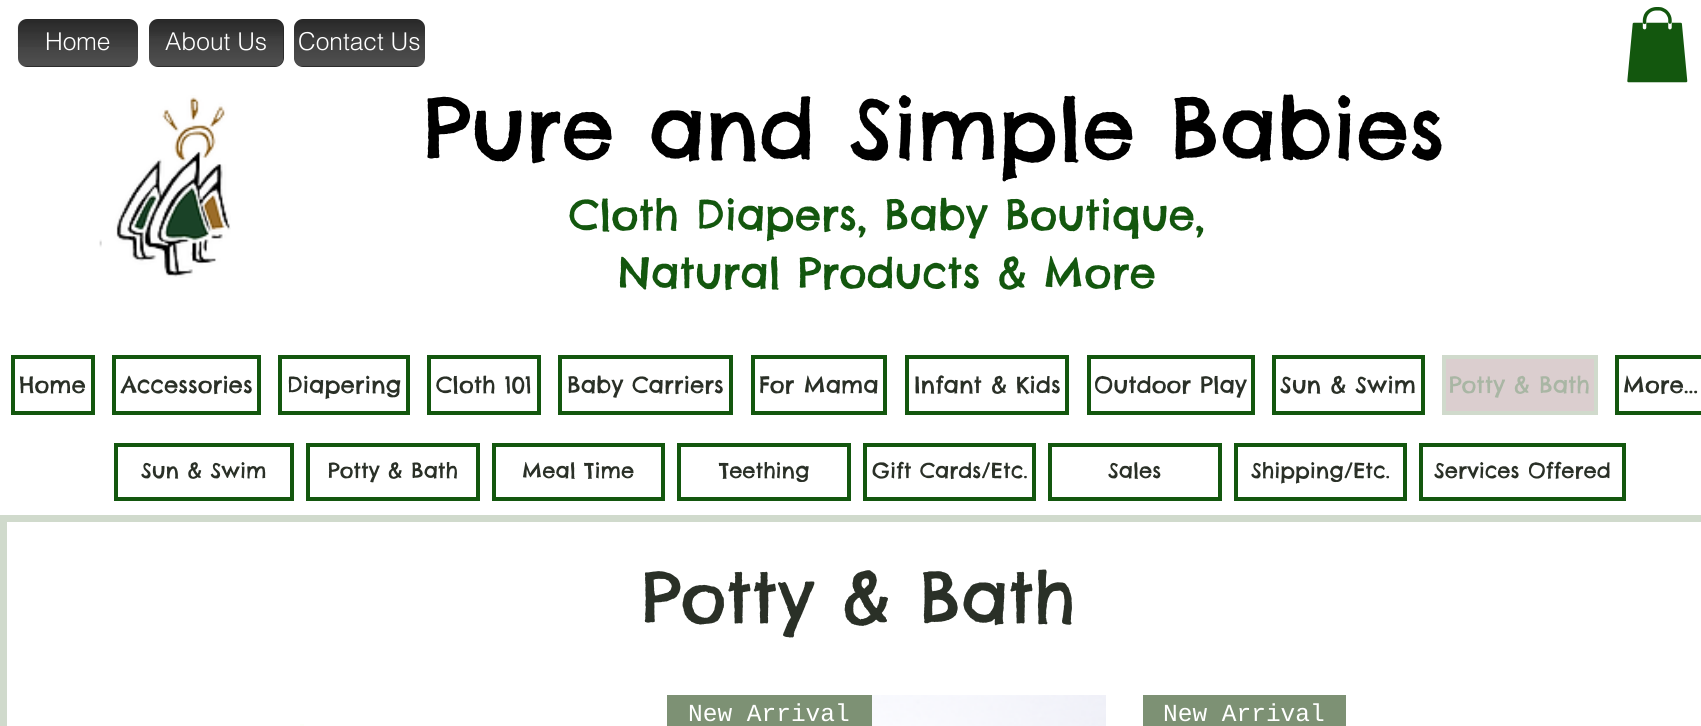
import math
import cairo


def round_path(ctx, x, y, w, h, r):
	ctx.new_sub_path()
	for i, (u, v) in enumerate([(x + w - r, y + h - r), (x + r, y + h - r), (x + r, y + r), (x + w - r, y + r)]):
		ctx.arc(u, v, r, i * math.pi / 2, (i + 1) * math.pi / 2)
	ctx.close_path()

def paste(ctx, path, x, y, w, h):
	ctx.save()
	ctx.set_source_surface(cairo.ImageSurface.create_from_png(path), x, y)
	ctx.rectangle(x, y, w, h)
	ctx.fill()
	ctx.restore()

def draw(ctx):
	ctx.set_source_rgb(1, 1, 1)
	ctx.paint()
	ctx.set_source_rgb(0.137, 0.137, 0.137)
	round_path(ctx, 18, 19, 120, 48, 9)
	ctx.fill()
	paste(ctx, 'media/1.png', 17, 19, 121, 28)
	paste(ctx, 'media/2.png', 18, 19, 120, 48)
	ctx.select_font_face('helvetica Light')
	ctx.set_font_size(24.5)
	ctx.set_source_rgb(1, 1, 1)
	ctx.move_to(45, 50)
	ctx.show_text('Home')
	ctx.set_source_rgb(0.137, 0.137, 0.137)
	round_path(ctx, 149, 19, 135, 48, 9)
	ctx.fill()
	paste(ctx, 'media/3.png', 149, 19, 134, 17)
	paste(ctx, 'media/4.png', 149, 19, 135, 48)
	ctx.set_source_rgb(1, 1, 1)
	ctx.move_to(165, 50)
	ctx.show_text('About Us')
	ctx.set_source_rgb(0.137, 0.137, 0.137)
	round_path(ctx, 294, 19, 131, 48, 9)
	ctx.fill()
	paste(ctx, 'media/5.png', 294, 19, 131, 17)
	paste(ctx, 'media/6.png', 294, 19, 131, 48)
	ctx.set_source_rgb(1, 1, 1)
	ctx.move_to(298, 50)
	ctx.show_text('Contact Us')
	paste(ctx, 'media/7.png', 1627, 7, 61, 76)
	paste(ctx, 'media/8.png', 99, 95, 132, 183)
	ctx.select_font_face('Chelsea Market')
	ctx.set_font_size(84)
	ctx.set_source_rgb(0, 0, 0)
	ctx.move_to(424, 159)
	ctx.show_text('Pure and Simple Babies')
	ctx.set_font_size(42)
	ctx.set_source_rgb(0.075, 0.341, 0.055)
	ctx.move_to(569, 230)
	ctx.show_text('Cloth Diapers, Baby Boutique,')
	ctx.move_to(618, 288)
	ctx.show_text('Natural Products & More')
	ctx.rectangle(13, 357, 80, 56)
	ctx.set_line_width(4)
	ctx.stroke()
	ctx.set_font_size(22.75)
	ctx.set_source_rgb(0.165, 0.188, 0.153)
	ctx.move_to(19, 393)
	ctx.show_text('Home')
	ctx.rectangle(114, 357, 145, 56)
	ctx.set_source_rgb(0.075, 0.341, 0.055)
	ctx.stroke()
	ctx.set_source_rgb(0.165, 0.188, 0.153)
	ctx.move_to(121, 393)
	ctx.show_text('Accessories')
	ctx.rectangle(280, 357, 128, 56)
	ctx.set_source_rgb(0.075, 0.341, 0.055)
	ctx.stroke()
	ctx.set_source_rgb(0.165, 0.188, 0.153)
	ctx.move_to(287, 393)
	ctx.show_text('Diapering')
	ctx.rectangle(429, 357, 110, 56)
	ctx.set_source_rgb(0.075, 0.341, 0.055)
	ctx.stroke()
	ctx.set_source_rgb(0.165, 0.188, 0.153)
	ctx.move_to(436, 393)
	ctx.show_text('Cloth 101')
	ctx.rectangle(560, 357, 171, 56)
	ctx.set_source_rgb(0.075, 0.341, 0.055)
	ctx.stroke()
	ctx.set_source_rgb(0.165, 0.188, 0.153)
	ctx.move_to(567, 393)
	ctx.show_text('Baby Carriers')
	ctx.rectangle(753, 357, 132, 56)
	ctx.set_source_rgb(0.075, 0.341, 0.055)
	ctx.stroke()
	ctx.set_source_rgb(0.165, 0.188, 0.153)
	ctx.move_to(759, 393)
	ctx.show_text('For Mama')
	ctx.rectangle(907, 357, 160, 56)
	ctx.set_source_rgb(0.075, 0.341, 0.055)
	ctx.stroke()
	ctx.set_source_rgb(0.165, 0.188, 0.153)
	ctx.move_to(914, 393)
	ctx.show_text('Infant & Kids')
	ctx.rectangle(1089, 357, 164, 56)
	ctx.set_source_rgb(0.075, 0.341, 0.055)
	ctx.stroke()
	ctx.set_source_rgb(0.165, 0.188, 0.153)
	ctx.move_to(1094, 393)
	ctx.show_text('Outdoor Play')
	ctx.rectangle(1274, 357, 149, 56)
	ctx.set_source_rgb(0.075, 0.341, 0.055)
	ctx.stroke()
	ctx.set_source_rgb(0.165, 0.188, 0.153)
	ctx.move_to(1280, 393)
	ctx.show_text('Sun & Swim')
	ctx.set_source_rgb(0.859, 0.808, 0.812)
	ctx.rectangle(1444, 357, 152, 56)
	ctx.fill_preserve()
	ctx.set_source_rgb(0.816, 0.855, 0.8)
	ctx.stroke()
	ctx.set_source_rgb(0.663, 0.714, 0.643)
	ctx.move_to(1449, 393)
	ctx.show_text('Potty & Bath')
	ctx.rectangle(1617, 357, 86, 56)
	ctx.set_source_rgb(0.075, 0.341, 0.055)
	ctx.stroke()
	ctx.set_source_rgb(0.165, 0.188, 0.153)
	ctx.move_to(1623, 393)
	ctx.show_text('More...')
	ctx.rectangle(116, 445, 176, 54)
	ctx.set_source_rgb(0.075, 0.341, 0.055)
	ctx.stroke()
	ctx.set_font_size(21)
	ctx.set_source_rgb(0.165, 0.188, 0.153)
	ctx.move_to(141, 478)
	ctx.show_text('Sun & Swim')
	ctx.rectangle(308, 445, 170, 54)
	ctx.set_source_rgb(0.075, 0.341, 0.055)
	ctx.stroke()
	ctx.set_source_rgb(0.165, 0.188, 0.153)
	ctx.move_to(328, 478)
	ctx.show_text('Potty & Bath')
	ctx.rectangle(494, 445, 169, 54)
	ctx.set_source_rgb(0.075, 0.341, 0.055)
	ctx.stroke()
	ctx.set_source_rgb(0.165, 0.188, 0.153)
	ctx.move_to(522, 478)
	ctx.show_text('Meal Time')
	ctx.rectangle(679, 445, 170, 54)
	ctx.set_source_rgb(0.075, 0.341, 0.055)
	ctx.stroke()
	ctx.set_source_rgb(0.165, 0.188, 0.153)
	ctx.move_to(719, 478)
	ctx.show_text('Teething')
	ctx.rectangle(865, 445, 169, 54)
	ctx.set_source_rgb(0.075, 0.341, 0.055)
	ctx.stroke()
	ctx.set_source_rgb(0.165, 0.188, 0.153)
	ctx.move_to(872, 478)
	ctx.show_text('Gift Cards/Etc.')
	ctx.rectangle(1050, 445, 170, 54)
	ctx.set_source_rgb(0.075, 0.341, 0.055)
	ctx.stroke()
	ctx.set_source_rgb(0.165, 0.188, 0.153)
	ctx.move_to(1108, 478)
	ctx.show_text('Sales')
	ctx.rectangle(1236, 445, 169, 54)
	ctx.set_source_rgb(0.075, 0.341, 0.055)
	ctx.stroke()
	ctx.set_source_rgb(0.165, 0.188, 0.153)
	ctx.move_to(1251, 478)
	ctx.show_text('Shipping/Etc.')
	ctx.rectangle(1421, 445, 203, 54)
	ctx.set_source_rgb(0.075, 0.341, 0.055)
	ctx.stroke()
	ctx.set_source_rgb(0.165, 0.188, 0.153)
	ctx.move_to(1434, 478)
	ctx.show_text('Services Offered')
	ctx.rectangle(3.5, 518.5, 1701, 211)
	ctx.set_source_rgb(0.816, 0.855, 0.8)
	ctx.set_line_width(7)
	ctx.stroke()
	ctx.set_font_size(70)
	ctx.set_source_rgb(0.165, 0.188, 0.153)
	ctx.move_to(642, 623)
	ctx.show_text('Potty & Bath')
	ctx.set_source_rgb(0.49, 0.569, 0.455)
	ctx.rectangle(667, 695, 205, 31)
	ctx.fill()
	ctx.select_font_face('Liberation Mono')
	ctx.set_font_size(24.5)
	ctx.set_source_rgb(1, 1, 1)
	ctx.move_to(688, 721)
	ctx.show_text('New Arrival')
	paste(ctx, 'media/9.png', 872, 695, 234, 31)
	ctx.set_source_rgb(0.49, 0.569, 0.455)
	ctx.rectangle(1143, 695, 203, 31)
	ctx.fill()
	ctx.set_source_rgb(1, 1, 1)
	ctx.move_to(1163, 721)
	ctx.show_text('New Arrival')
	ctx.set_source_rgb(0.988, 1, 0.98)
	ctx.rectangle(300, 724, 4, 2)
	ctx.fill()


surface = cairo.ImageSurface(cairo.FORMAT_RGB24, 1701, 726)
ctx = cairo.Context(surface)
options = cairo.FontOptions()
options.set_hint_metrics(cairo.HINT_METRICS_OFF)
options.set_hint_style(cairo.HINT_STYLE_NONE)
ctx.set_font_options(options)
ctx.set_miter_limit(4)
draw(ctx)
surface.write_to_png('image.png')
